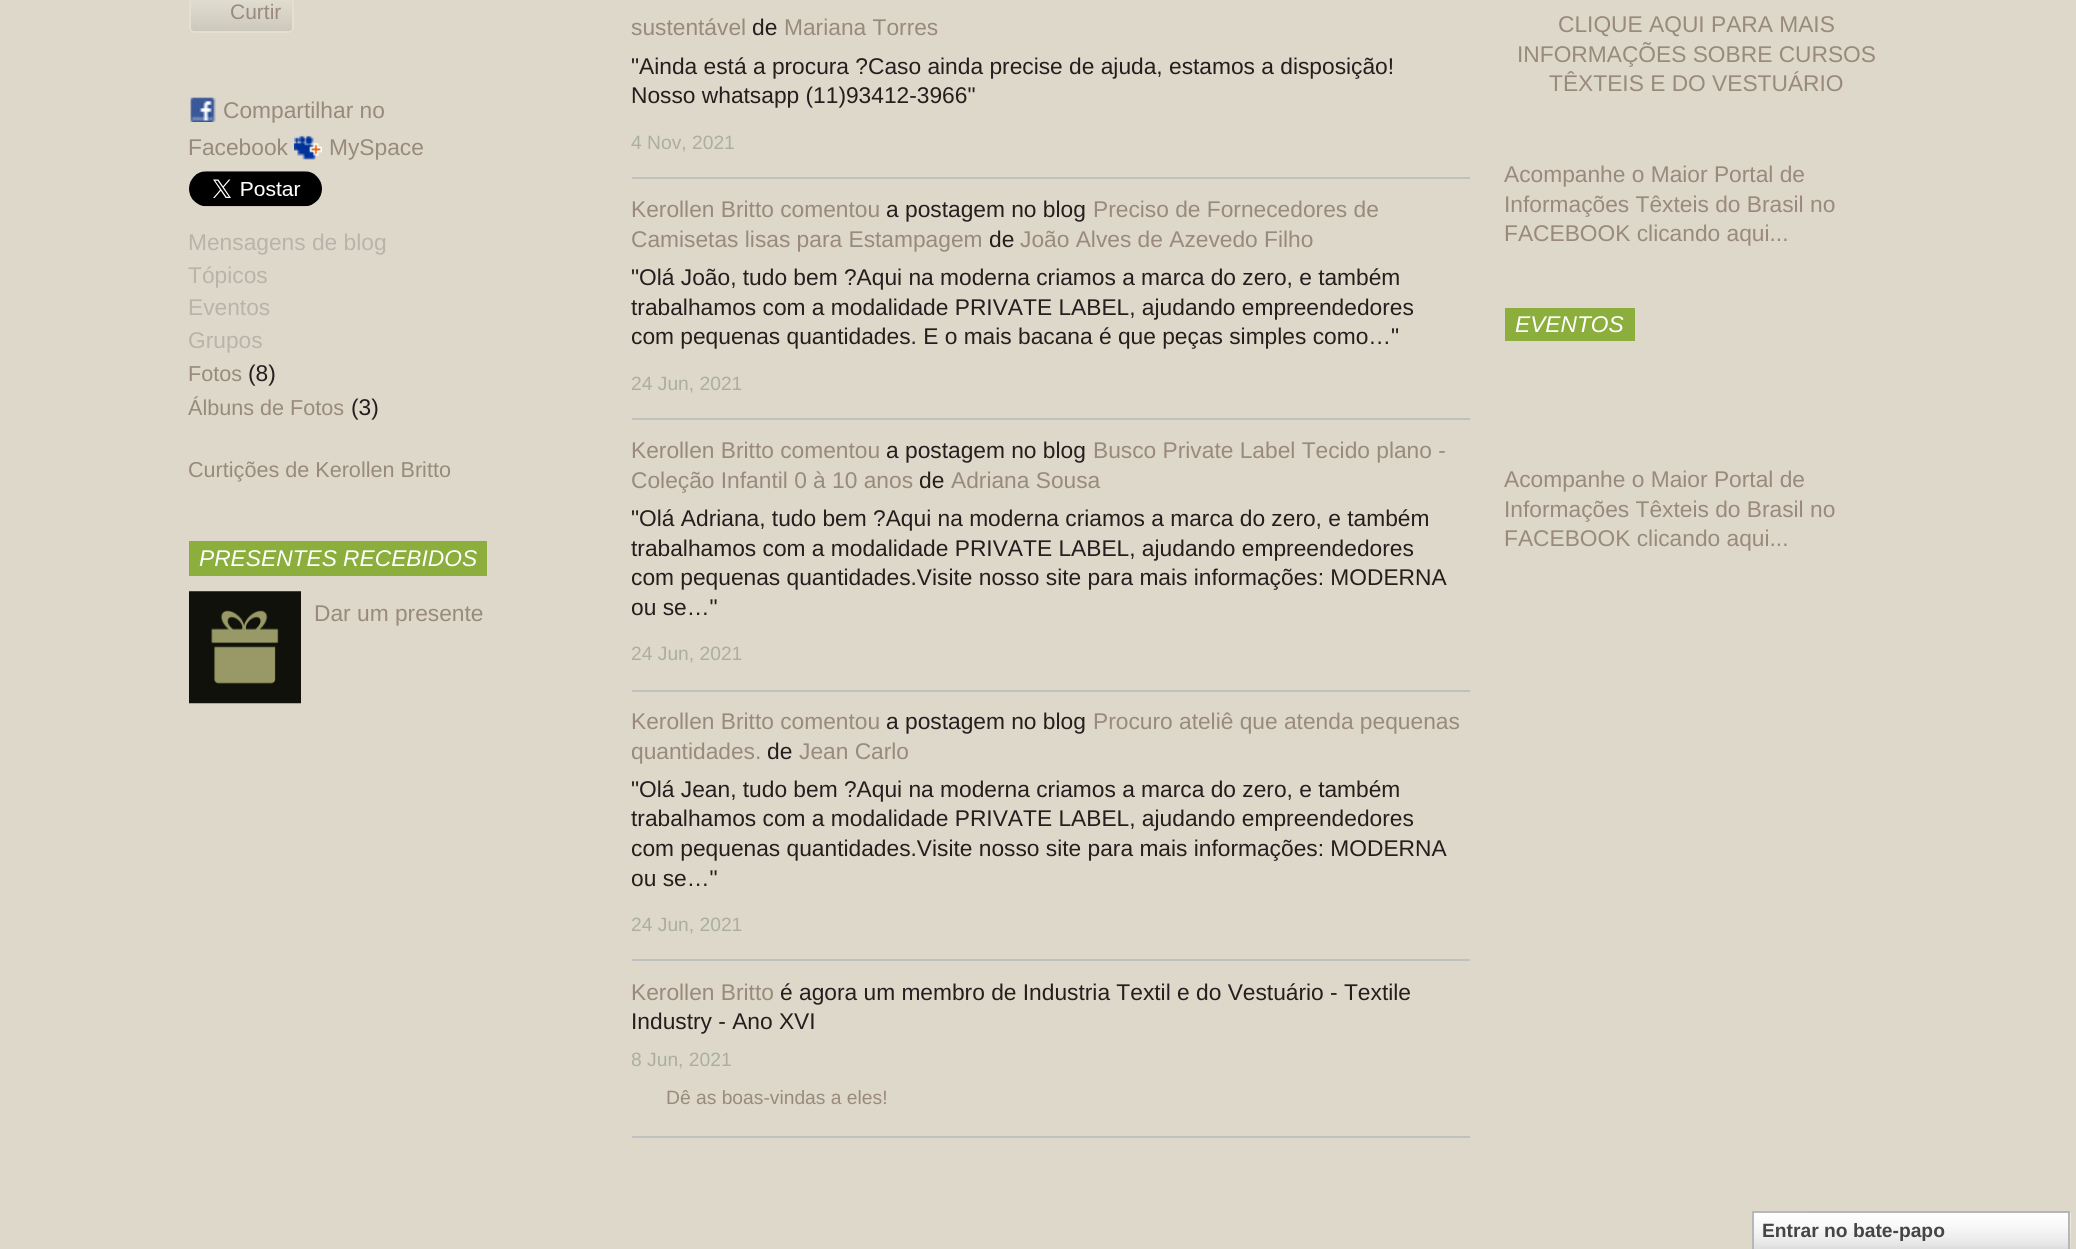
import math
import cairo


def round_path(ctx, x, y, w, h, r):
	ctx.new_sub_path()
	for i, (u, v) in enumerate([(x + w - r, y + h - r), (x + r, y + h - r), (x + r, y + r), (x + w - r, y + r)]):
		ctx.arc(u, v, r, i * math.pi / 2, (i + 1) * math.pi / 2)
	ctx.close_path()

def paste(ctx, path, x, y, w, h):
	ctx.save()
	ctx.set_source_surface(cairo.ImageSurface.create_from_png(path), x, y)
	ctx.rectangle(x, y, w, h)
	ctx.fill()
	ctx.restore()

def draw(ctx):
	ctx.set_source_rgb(0.867, 0.847, 0.788)
	ctx.paint()
	paste(ctx, 'media/1.png', 189, 0, 105, 33)
	round_path(ctx, 190, -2, 103, 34, 4)
	ctx.set_source_rgb(0.894, 0.871, 0.827)
	ctx.stroke()
	ctx.select_font_face('Liberation Sans')
	ctx.set_font_size(21)
	ctx.set_source_rgb(0.6, 0.541, 0.486)
	ctx.move_to(230, 19)
	ctx.show_text('Curtir')
	paste(ctx, 'media/2.png', 190, 97, 26, 25)
	ctx.set_font_size(22.75)
	ctx.move_to(223, 118)
	ctx.show_text('Compartilhar no')
	ctx.move_to(188, 155)
	ctx.show_text('Facebook')
	paste(ctx, 'media/3.png', 294, 135, 28, 25)
	ctx.move_to(329, 155)
	ctx.show_text('MySpace')
	paste(ctx, 'media/4.png', 189, 171, 133, 36)
	ctx.set_source_rgb(0.718, 0.706, 0.671)
	for x, y, s in [
		(188, 250, 'Mensagens de blog'),
		(188, 283, 'Tópicos'),
		(188, 315, 'Eventos'),
		(188, 348, 'Grupos'),
	]:
		ctx.move_to(x, y)
		ctx.show_text(s)
	ctx.set_font_size(21.6)
	ctx.set_source_rgb(0.6, 0.541, 0.486)
	ctx.move_to(188, 381)
	ctx.show_text('Fotos')
	ctx.set_font_size(22.75)
	ctx.set_source_rgb(0.141, 0.118, 0.118)
	ctx.move_to(248, 381)
	ctx.show_text('(8)')
	ctx.set_font_size(21.6)
	ctx.set_source_rgb(0.6, 0.541, 0.486)
	ctx.move_to(188, 415)
	ctx.show_text('Álbuns de Fotos')
	ctx.set_font_size(22.75)
	ctx.set_source_rgb(0.141, 0.118, 0.118)
	ctx.move_to(351, 415)
	ctx.show_text('(3)')
	ctx.set_font_size(21.6)
	ctx.set_source_rgb(0.6, 0.541, 0.486)
	ctx.move_to(188, 477)
	ctx.show_text('Curtições de Kerollen Britto')
	ctx.set_source_rgb(0.545, 0.682, 0.235)
	ctx.rectangle(189, 541, 298, 35)
	ctx.fill()
	ctx.select_font_face('Liberation Sans', cairo.FONT_SLANT_ITALIC)
	ctx.set_font_size(22.75)
	ctx.set_source_rgb(1, 1, 1)
	ctx.move_to(199, 566)
	ctx.show_text('PRESENTES RECEBIDOS')
	paste(ctx, 'media/5.png', 189, 591, 112, 113)
	ctx.select_font_face('Liberation Sans')
	ctx.set_source_rgb(0.6, 0.541, 0.486)
	ctx.move_to(314, 621)
	ctx.show_text('Dar um presente')
	ctx.set_source_rgb(0.753, 0.753, 0.753)
	ctx.rectangle(632, 177, 838, 2)
	ctx.fill()
	ctx.set_source_rgb(0.6, 0.541, 0.486)
	ctx.move_to(631, 35)
	ctx.show_text('sustentável')
	ctx.set_source_rgb(0.141, 0.118, 0.118)
	ctx.move_to(752, 35)
	ctx.show_text('de')
	ctx.set_source_rgb(0.6, 0.541, 0.486)
	ctx.move_to(784, 35)
	ctx.show_text('Mariana Torres')
	ctx.set_source_rgb(0.141, 0.118, 0.118)
	ctx.move_to(631, 74)
	ctx.show_text('"Ainda está a procura ?Caso ainda precise de ajuda, estamos a disposição!')
	ctx.move_to(631, 103)
	ctx.show_text('Nosso whatsapp (11)93412-3966"')
	ctx.set_font_size(19.25)
	ctx.set_source_rgb(0.667, 0.686, 0.624)
	ctx.move_to(631, 149)
	ctx.show_text('4 Nov, 2021')
	ctx.set_source_rgb(0.753, 0.753, 0.753)
	ctx.rectangle(632, 418, 838, 2)
	ctx.fill()
	ctx.set_font_size(22.75)
	ctx.set_source_rgb(0.6, 0.541, 0.486)
	ctx.move_to(631, 217)
	ctx.show_text('Kerollen Britto comentou')
	ctx.set_source_rgb(0.141, 0.118, 0.118)
	ctx.move_to(886, 217)
	ctx.show_text('a postagem no blog')
	ctx.set_source_rgb(0.6, 0.541, 0.486)
	ctx.move_to(1093, 217)
	ctx.show_text('Preciso de Fornecedores de')
	ctx.move_to(631, 247)
	ctx.show_text('Camisetas lisas para Estampagem')
	ctx.set_source_rgb(0.141, 0.118, 0.118)
	ctx.move_to(989, 247)
	ctx.show_text('de')
	ctx.set_source_rgb(0.6, 0.541, 0.486)
	ctx.move_to(1020, 247)
	ctx.show_text('João Alves de Azevedo Filho')
	ctx.set_source_rgb(0.141, 0.118, 0.118)
	for x, y, s in [
		(631, 285, '"Olá João, tudo bem ?Aqui na moderna criamos a marca do zero, e também'),
		(631, 315, 'trabalhamos com a modalidade PRIVATE LABEL, ajudando empreendedores'),
		(631, 344, 'com pequenas quantidades. E o mais bacana é que peças simples como…"'),
	]:
		ctx.move_to(x, y)
		ctx.show_text(s)
	ctx.set_font_size(19.25)
	ctx.set_source_rgb(0.667, 0.686, 0.624)
	ctx.move_to(631, 390)
	ctx.show_text('24 Jun, 2021')
	ctx.set_source_rgb(0.753, 0.753, 0.753)
	ctx.rectangle(632, 690, 838, 2)
	ctx.fill()
	ctx.set_font_size(22.75)
	ctx.set_source_rgb(0.6, 0.541, 0.486)
	ctx.move_to(631, 458)
	ctx.show_text('Kerollen Britto comentou')
	ctx.set_source_rgb(0.141, 0.118, 0.118)
	ctx.move_to(886, 458)
	ctx.show_text('a postagem no blog')
	ctx.set_source_rgb(0.6, 0.541, 0.486)
	ctx.move_to(1093, 458)
	ctx.show_text('Busco Private Label Tecido plano -')
	ctx.move_to(631, 488)
	ctx.show_text('Coleção Infantil 0 à 10 anos')
	ctx.set_source_rgb(0.141, 0.118, 0.118)
	ctx.move_to(919, 488)
	ctx.show_text('de')
	ctx.set_source_rgb(0.6, 0.541, 0.486)
	ctx.move_to(951, 488)
	ctx.show_text('Adriana Sousa')
	ctx.set_source_rgb(0.141, 0.118, 0.118)
	for x, y, s in [
		(631, 526, '"Olá Adriana, tudo bem ?Aqui na moderna criamos a marca do zero, e também'),
		(631, 556, 'trabalhamos com a modalidade PRIVATE LABEL, ajudando empreendedores'),
		(631, 585, 'com pequenas quantidades.Visite nosso site para mais informações: MODERNA'),
		(631, 615, 'ou se…"'),
	]:
		ctx.move_to(x, y)
		ctx.show_text(s)
	ctx.set_font_size(19.25)
	ctx.set_source_rgb(0.667, 0.686, 0.624)
	ctx.move_to(631, 660)
	ctx.show_text('24 Jun, 2021')
	ctx.set_source_rgb(0.753, 0.753, 0.753)
	ctx.rectangle(632, 959, 838, 2)
	ctx.fill()
	ctx.set_font_size(22.75)
	ctx.set_source_rgb(0.6, 0.541, 0.486)
	ctx.move_to(631, 729)
	ctx.show_text('Kerollen Britto comentou')
	ctx.set_source_rgb(0.141, 0.118, 0.118)
	ctx.move_to(886, 729)
	ctx.show_text('a postagem no blog')
	ctx.set_source_rgb(0.6, 0.541, 0.486)
	ctx.move_to(1093, 729)
	ctx.show_text('Procuro ateliê que atenda pequenas')
	ctx.move_to(631, 759)
	ctx.show_text('quantidades.')
	ctx.set_source_rgb(0.141, 0.118, 0.118)
	ctx.move_to(767, 759)
	ctx.show_text('de')
	ctx.set_source_rgb(0.6, 0.541, 0.486)
	ctx.move_to(799, 759)
	ctx.show_text('Jean Carlo')
	ctx.set_source_rgb(0.141, 0.118, 0.118)
	for x, y, s in [
		(631, 797, '"Olá Jean, tudo bem ?Aqui na moderna criamos a marca do zero, e também'),
		(631, 826, 'trabalhamos com a modalidade PRIVATE LABEL, ajudando empreendedores'),
		(631, 856, 'com pequenas quantidades.Visite nosso site para mais informações: MODERNA'),
		(631, 886, 'ou se…"'),
	]:
		ctx.move_to(x, y)
		ctx.show_text(s)
	ctx.set_font_size(19.25)
	ctx.set_source_rgb(0.667, 0.686, 0.624)
	ctx.move_to(631, 931)
	ctx.show_text('24 Jun, 2021')
	ctx.set_source_rgb(0.753, 0.753, 0.753)
	ctx.rectangle(632, 1136, 838, 2)
	ctx.fill()
	ctx.set_font_size(22.75)
	ctx.set_source_rgb(0.6, 0.541, 0.486)
	ctx.move_to(631, 1000)
	ctx.show_text('Kerollen Britto')
	ctx.set_source_rgb(0.141, 0.118, 0.118)
	ctx.move_to(780, 1000)
	ctx.show_text('é agora um membro de Industria Textil e do Vestuário - Textile')
	ctx.move_to(631, 1029)
	ctx.show_text('Industry - Ano XVI')
	ctx.set_font_size(19.25)
	ctx.set_source_rgb(0.667, 0.686, 0.624)
	ctx.move_to(631, 1066)
	ctx.show_text('8 Jun, 2021')
	ctx.set_source_rgb(0.6, 0.541, 0.486)
	ctx.move_to(666, 1104)
	ctx.show_text('Dê as boas-vindas a eles!')
	ctx.set_font_size(22.75)
	for x, y, s in [
		(1558, 32, 'CLIQUE AQUI PARA MAIS'),
		(1517, 62, 'INFORMAÇÕES SOBRE CURSOS'),
		(1549, 91, 'TÊXTEIS E DO VESTUÁRIO'),
		(1504, 182, 'Acompanhe o Maior Portal de'),
		(1504, 212, 'Informações Têxteis do Brasil no'),
		(1504, 241, 'FACEBOOK clicando aqui...'),
	]:
		ctx.move_to(x, y)
		ctx.show_text(s)
	ctx.set_source_rgb(0.545, 0.682, 0.235)
	ctx.rectangle(1505, 308, 130, 33)
	ctx.fill()
	ctx.select_font_face('Liberation Sans', cairo.FONT_SLANT_ITALIC)
	ctx.set_source_rgb(1, 1, 1)
	ctx.move_to(1515, 332)
	ctx.show_text('EVENTOS')
	ctx.select_font_face('Liberation Sans')
	ctx.set_source_rgb(0.6, 0.541, 0.486)
	for x, y, s in [
		(1504, 487, 'Acompanhe o Maior Portal de'),
		(1504, 517, 'Informações Têxteis do Brasil no'),
		(1504, 546, 'FACEBOOK clicando aqui...'),
	]:
		ctx.move_to(x, y)
		ctx.show_text(s)
	paste(ctx, 'media/6.png', 1754, 1212, 317, 37)
	ctx.rectangle(1753, 1212, 316, 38)
	ctx.set_source_rgb(0.718, 0.718, 0.718)
	ctx.stroke()
	ctx.set_source_rgb(0.733, 0.733, 0.733)
	ctx.rectangle(1763, 1212, 46, 1)
	ctx.fill()
	ctx.select_font_face('Liberation Sans', cairo.FONT_SLANT_NORMAL, cairo.FONT_WEIGHT_BOLD)
	ctx.set_font_size(19.25)
	ctx.set_source_rgb(0.271, 0.271, 0.271)
	ctx.move_to(1762, 1237)
	ctx.show_text('Entrar no bate-papo')


surface = cairo.ImageSurface(cairo.FORMAT_RGB24, 2076, 1249)
ctx = cairo.Context(surface)
options = cairo.FontOptions()
options.set_hint_metrics(cairo.HINT_METRICS_OFF)
options.set_hint_style(cairo.HINT_STYLE_NONE)
ctx.set_font_options(options)
ctx.set_miter_limit(4)
draw(ctx)
surface.write_to_png('image.png')
